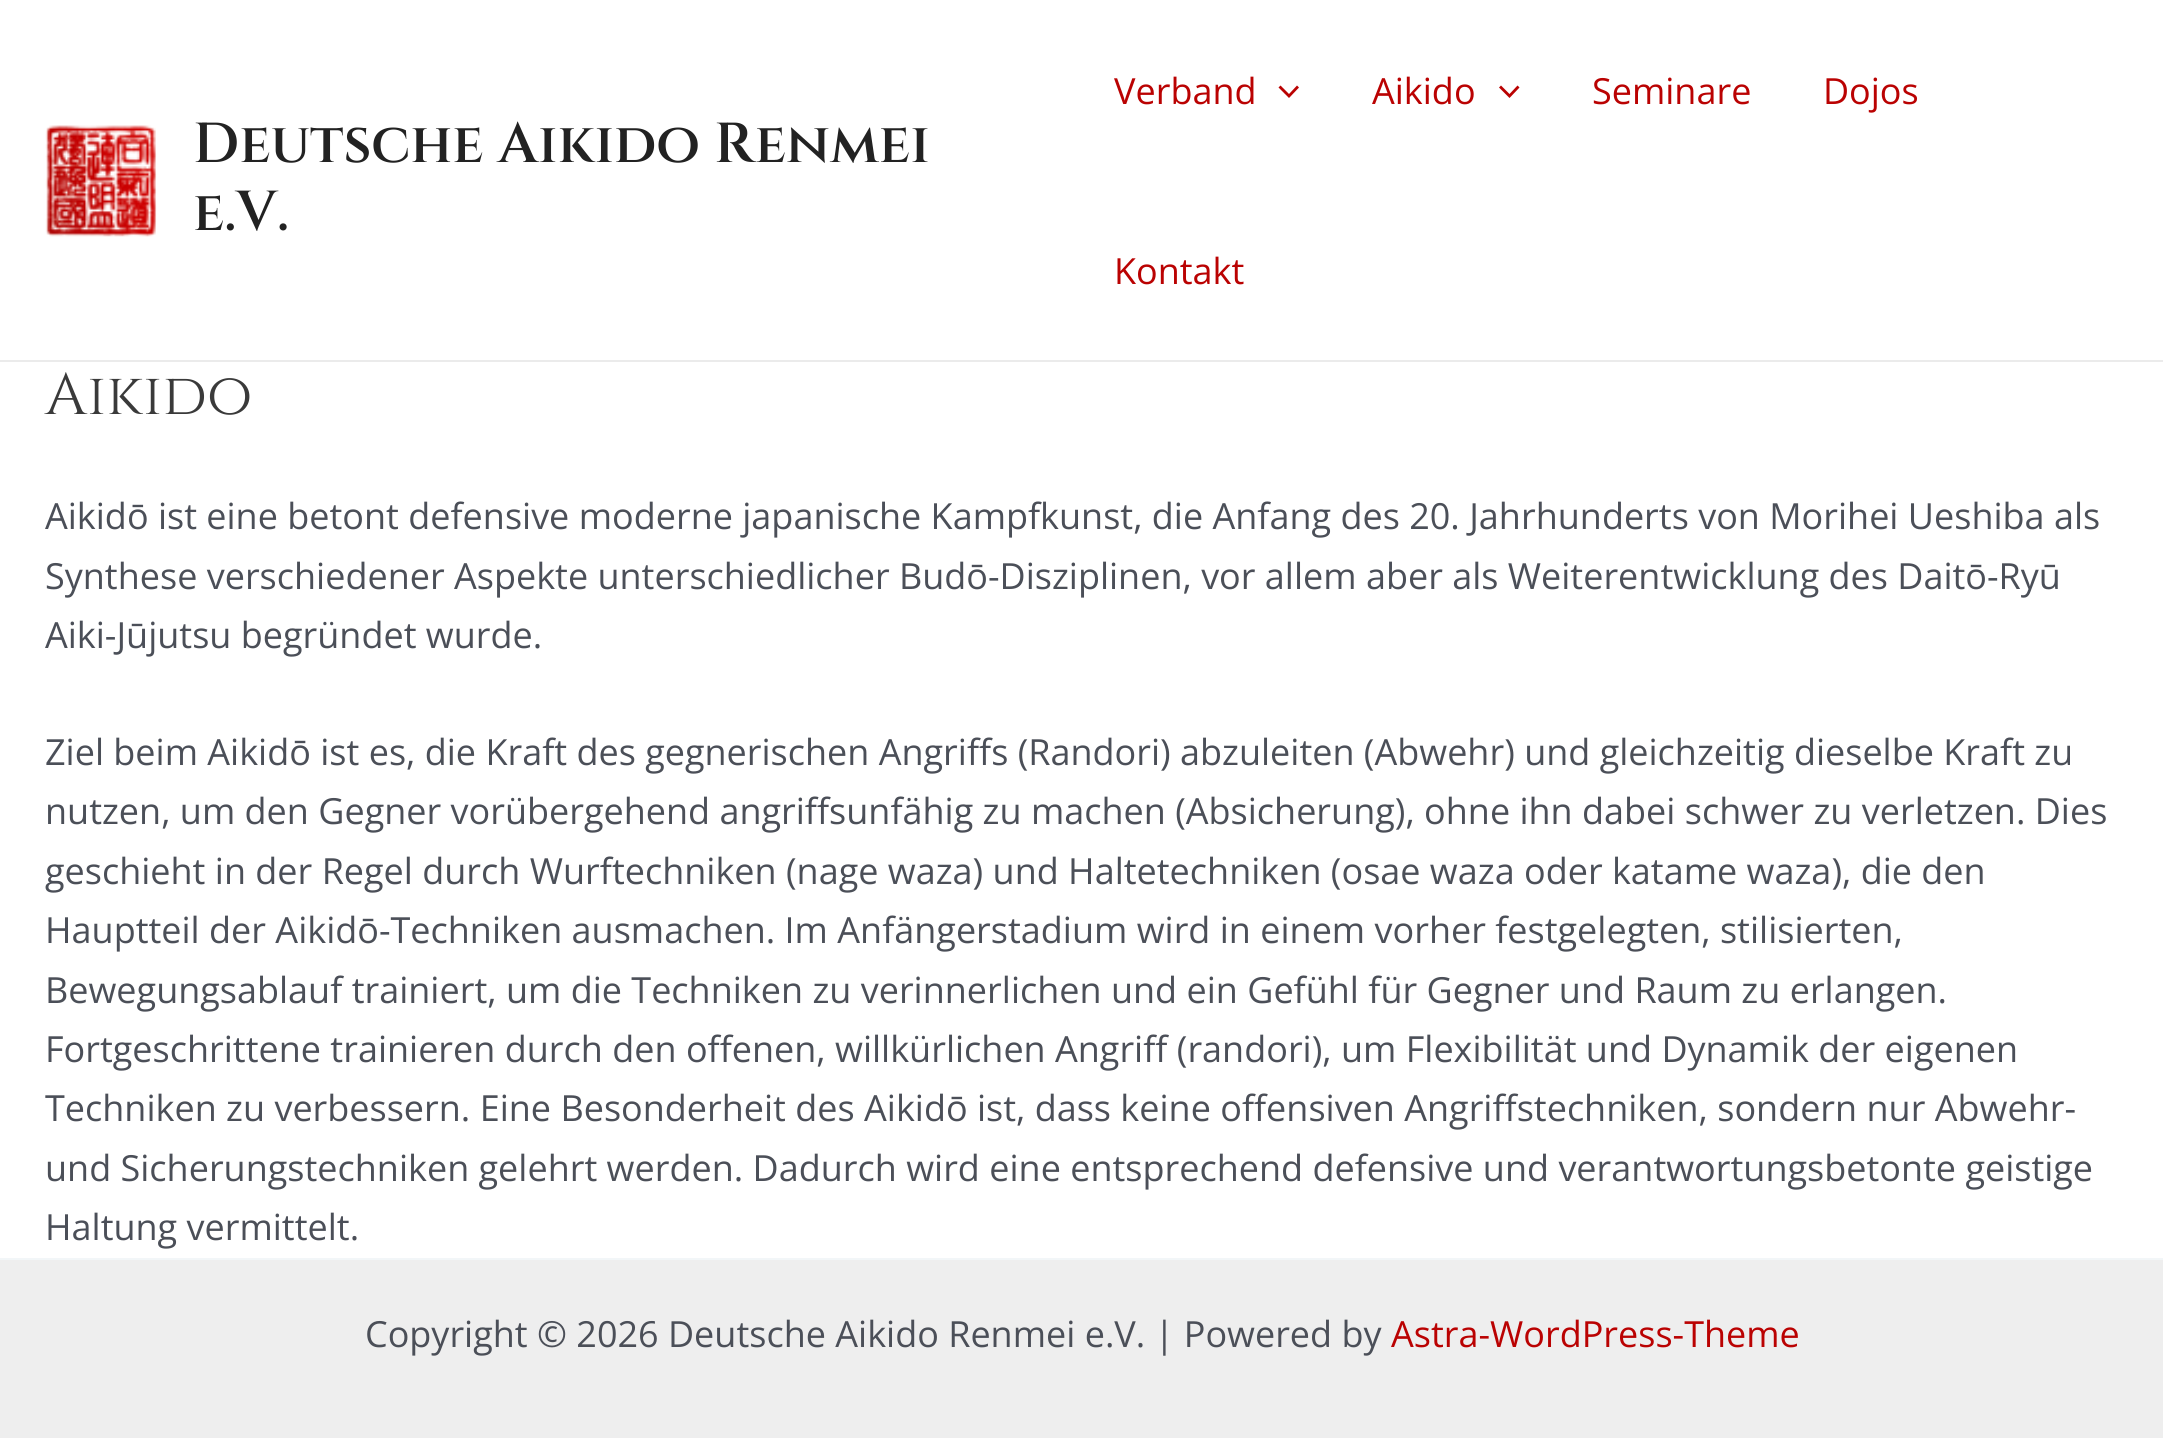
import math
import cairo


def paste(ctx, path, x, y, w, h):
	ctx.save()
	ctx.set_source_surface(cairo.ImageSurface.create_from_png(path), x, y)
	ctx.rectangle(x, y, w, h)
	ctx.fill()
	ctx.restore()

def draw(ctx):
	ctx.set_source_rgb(1, 1, 1)
	ctx.paint()
	ctx.set_source_rgb(0.918, 0.918, 0.918)
	ctx.rectangle(0, 360, 2163, 2)
	ctx.fill()
	paste(ctx, 'media/1.png', 45, 125, 112, 112)
	ctx.select_font_face('Cinzel SemiBold')
	ctx.set_font_size(56.25)
	ctx.set_source_rgb(0.133, 0.133, 0.133)
	ctx.move_to(193, 162)
	ctx.show_text('Deutsche Aikido Renmei')
	ctx.move_to(193, 230)
	ctx.show_text('e.V.')
	ctx.select_font_face('Open Sans')
	ctx.set_font_size(36)
	ctx.set_source_rgb(0.729, 0.008, 0.008)
	ctx.move_to(1114, 104)
	ctx.show_text('Verband')
	ctx.new_path()
	ctx.move_to(1278.5, 87.5)
	ctx.line_to(1289, 98)
	ctx.line_to(1299, 87.5)
	ctx.line_to(1297, 85.5)
	ctx.line_to(1289, 94)
	ctx.line_to(1280.5, 85.5)
	ctx.close_path()
	ctx.fill()
	ctx.move_to(1372, 104)
	ctx.show_text('Aikido')
	ctx.new_path()
	ctx.move_to(1499, 87.5)
	ctx.line_to(1509.5, 98)
	ctx.line_to(1519.5, 87.5)
	ctx.line_to(1517.5, 85.5)
	ctx.line_to(1509.5, 94)
	ctx.line_to(1501, 85.5)
	ctx.close_path()
	ctx.fill()
	for x, y, s in [
		(1592, 104, 'Seminare'),
		(1823, 104, 'Dojos'),
		(1114, 284, 'Kontakt'),
	]:
		ctx.move_to(x, y)
		ctx.show_text(s)
	ctx.select_font_face('Cinzel')
	ctx.set_font_size(58.5)
	ctx.set_source_rgb(0.227, 0.227, 0.227)
	ctx.move_to(45, 414)
	ctx.show_text('Aikido')
	ctx.select_font_face('Open Sans')
	ctx.set_font_size(36)
	ctx.set_source_rgb(0.294, 0.31, 0.345)
	for x, y, s in [
		(45, 529, 'Aikidō ist eine betont defensive moderne japanische Kampfkunst, die Anfang des 20. Jahrhunderts von Morihei Ueshiba als'),
		(45, 589, 'Synthese verschiedener Aspekte unterschiedlicher Budō-Disziplinen, vor allem aber als Weiterentwicklung des Daitō-Ryū'),
		(45, 648, 'Aiki-Jūjutsu begründet wurde.'),
		(45, 765, 'Ziel beim Aikidō ist es, die Kraft des gegnerischen Angriffs (Randori) abzuleiten (Abwehr) und gleichzeitig dieselbe Kraft zu'),
		(45, 824, 'nutzen, um den Gegner vorübergehend angriffsunfähig zu machen (Absicherung), ohne ihn dabei schwer zu verletzen. Dies'),
		(45, 884, 'geschieht in der Regel durch Wurftechniken (nage waza) und Haltetechniken (osae waza oder katame waza), die den'),
		(45, 943, 'Hauptteil der Aikidō-Techniken ausmachen. Im Anfängerstadium wird in einem vorher festgelegten, stilisierten,'),
		(45, 1003, 'Bewegungsablauf trainiert, um die Techniken zu verinnerlichen und ein Gefühl für Gegner und Raum zu erlangen.'),
		(45, 1062, 'Fortgeschrittene trainieren durch den offenen, willkürlichen Angriff (randori), um Flexibilität und Dynamik der eigenen'),
		(45, 1121, 'Techniken zu verbessern. Eine Besonderheit des Aikidō ist, dass keine offensiven Angriffstechniken, sondern nur Abwehr-'),
		(45, 1181, 'und Sicherungstechniken gelehrt werden. Dadurch wird eine entsprechend defensive und verantwortungsbetonte geistige'),
		(45, 1240, 'Haltung vermittelt.'),
	]:
		ctx.move_to(x, y)
		ctx.show_text(s)
	ctx.set_source_rgb(0.933, 0.933, 0.933)
	ctx.rectangle(0, 1260, 2163, 178)
	ctx.fill()
	ctx.set_source_rgb(0.949, 0.961, 0.969)
	ctx.rectangle(0, 1258, 2163, 2)
	ctx.fill()
	ctx.set_source_rgb(0.294, 0.31, 0.345)
	ctx.move_to(365, 1347)
	ctx.show_text('Copyright © 2026 Deutsche Aikido Renmei e.V. | Powered by')
	ctx.set_source_rgb(0.729, 0.008, 0.008)
	ctx.move_to(1391, 1347)
	ctx.show_text('Astra-WordPress-Theme')


surface = cairo.ImageSurface(cairo.FORMAT_RGB24, 2163, 1438)
ctx = cairo.Context(surface)
options = cairo.FontOptions()
options.set_hint_metrics(cairo.HINT_METRICS_OFF)
options.set_hint_style(cairo.HINT_STYLE_NONE)
ctx.set_font_options(options)
ctx.set_miter_limit(4)
draw(ctx)
surface.write_to_png('image.png')
